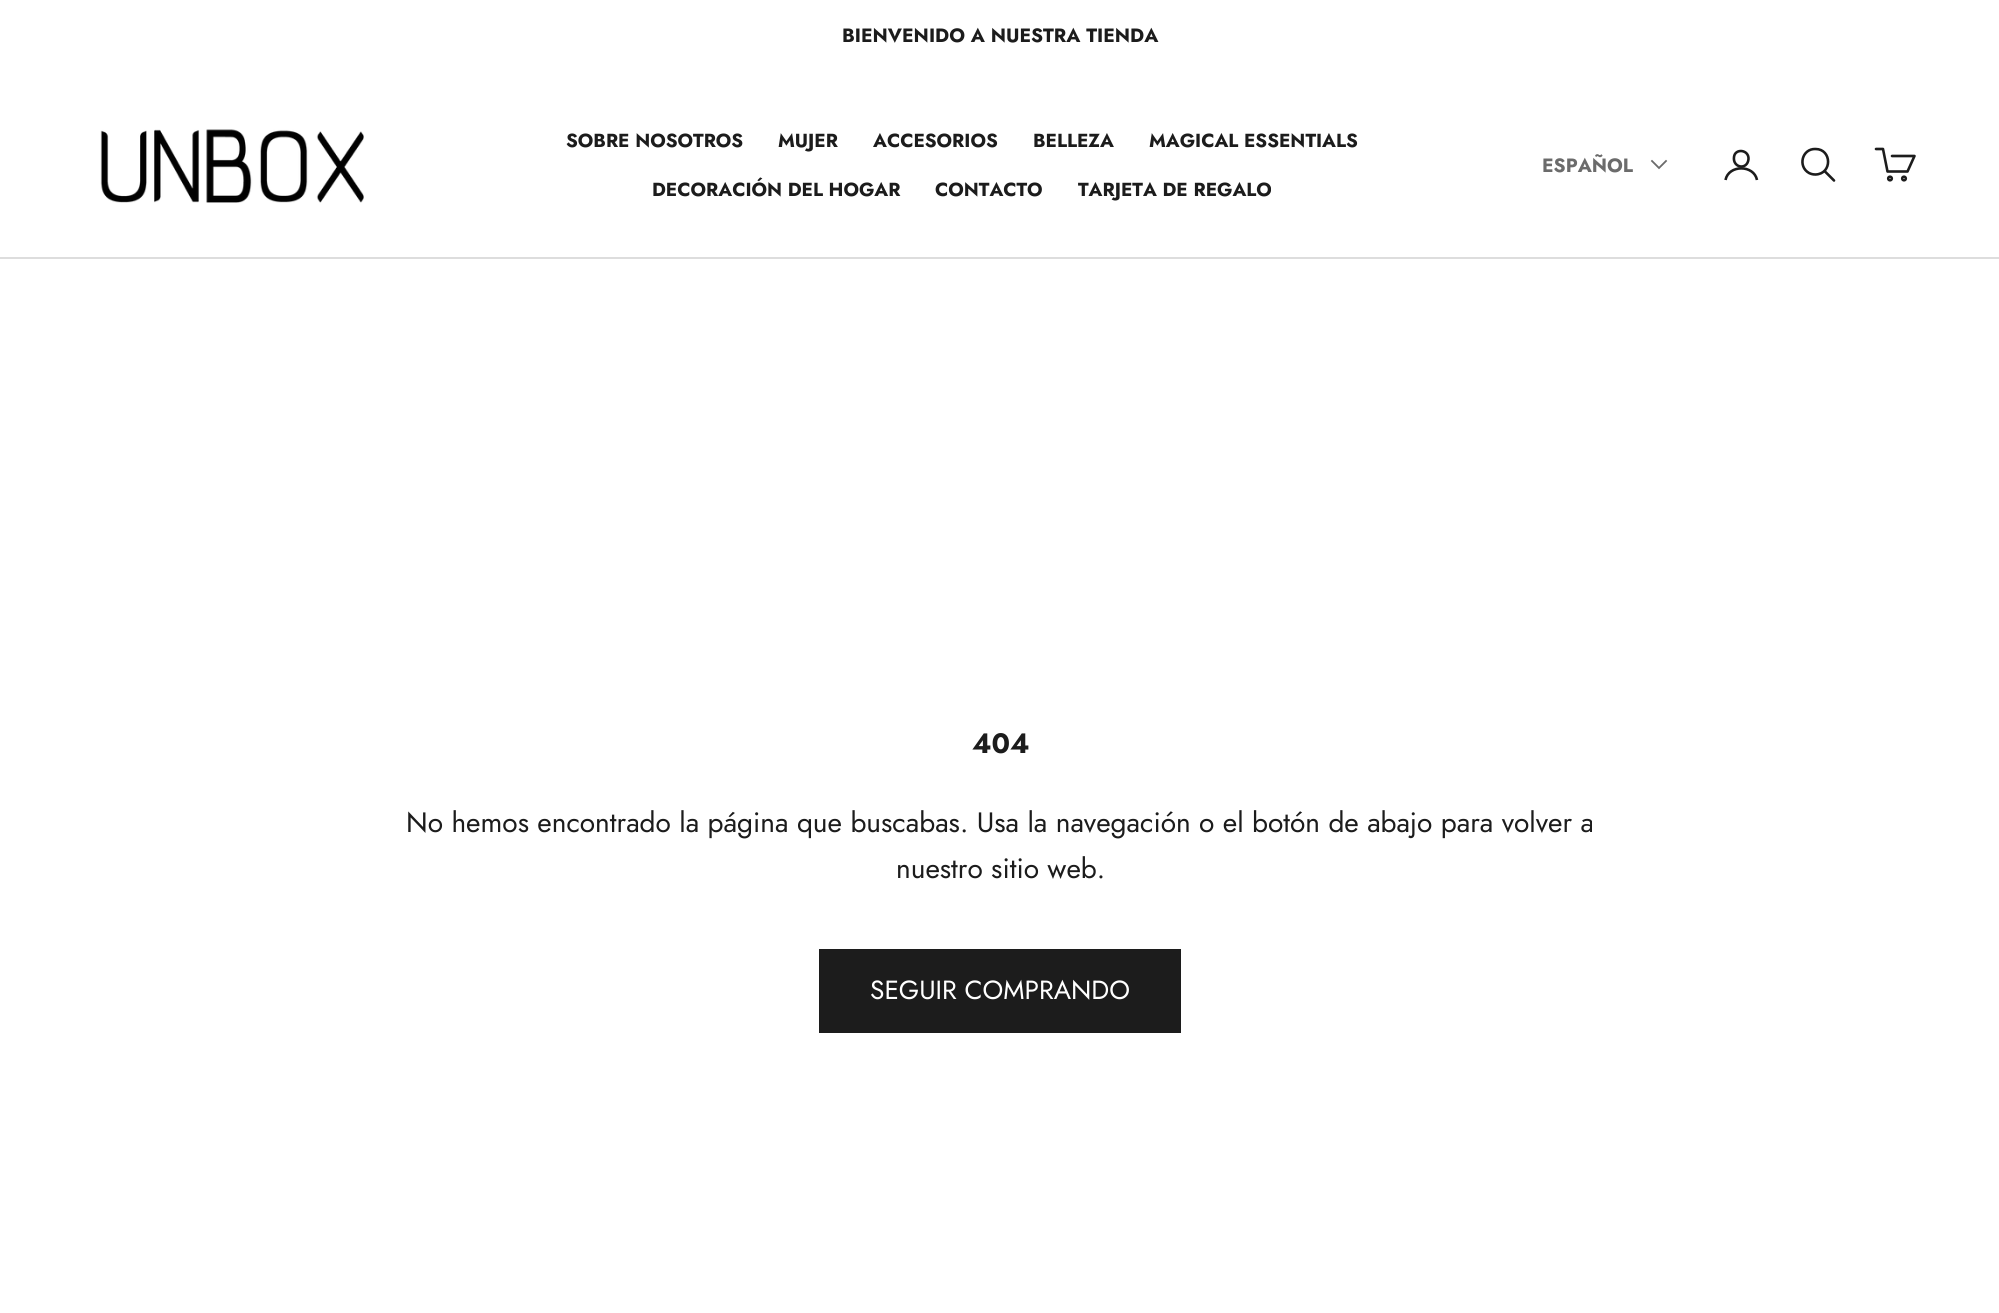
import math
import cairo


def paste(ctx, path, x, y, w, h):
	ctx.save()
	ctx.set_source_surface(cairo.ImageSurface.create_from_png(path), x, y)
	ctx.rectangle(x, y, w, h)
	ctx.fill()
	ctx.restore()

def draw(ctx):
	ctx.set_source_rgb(1, 1, 1)
	ctx.paint()
	ctx.select_font_face('Jost', cairo.FONT_SLANT_NORMAL, cairo.FONT_WEIGHT_BOLD)
	ctx.set_font_size(19.25)
	ctx.set_source_rgb(0.11, 0.11, 0.11)
	ctx.move_to(842, 42)
	ctx.show_text('BIENVENIDO A NUESTRA TIENDA')
	ctx.set_source_rgb(0.867, 0.867, 0.867)
	ctx.rectangle(0, 257, 1999, 2)
	ctx.fill()
	paste(ctx, 'media/1.png', 100, 129, 264, 74)
	ctx.set_font_size(18.9)
	ctx.set_source_rgb(0.11, 0.11, 0.11)
	for x, y, s in [
		(566, 147, 'SOBRE NOSOTROS'),
		(778, 147, 'MUJER'),
		(873, 147, 'ACCESORIOS'),
		(1033, 147, 'BELLEZA'),
		(1149, 147, 'MAGICAL ESSENTIALS'),
		(652, 196, 'DECORACIÓN DEL HOGAR'),
		(935, 196, 'CONTACTO'),
		(1078, 196, 'TARJETA DE REGALO'),
	]:
		ctx.move_to(x, y)
		ctx.show_text(s)
	ctx.set_font_size(19.25)
	ctx.set_source_rgb(0.42, 0.42, 0.42)
	ctx.move_to(1542, 172)
	ctx.show_text('ESPAÑOL')
	ctx.new_path()
	ctx.move_to(1652, 161)
	ctx.line_to(1659, 168)
	ctx.line_to(1666, 161)
	ctx.set_line_width(1.8)
	ctx.set_line_cap(cairo.LINE_CAP_SQUARE)
	ctx.stroke()
	ctx.new_path()
	ctx.move_to(1748.5, 159)
	ctx.curve_to(1747.5, 170.5, 1732.5, 168, 1734, 157)
	ctx.curve_to(1735, 148, 1749, 149.5, 1748.5, 159)
	ctx.close_path()
	ctx.set_source_rgb(0.11, 0.11, 0.11)
	ctx.set_line_width(2.6)
	ctx.set_line_cap(cairo.LINE_CAP_ROUND)
	ctx.set_line_join(cairo.LINE_JOIN_ROUND)
	ctx.stroke()
	ctx.new_path()
	ctx.move_to(1725.5, 180)
	ctx.curve_to(1728.5, 164.5, 1754, 164.5, 1757, 180)
	ctx.set_line_cap(cairo.LINE_CAP_BUTT)
	ctx.set_line_join(cairo.LINE_JOIN_MITER)
	ctx.stroke()
	ctx.new_path()
	ctx.move_to(1815.5, 149)
	ctx.curve_to(1802, 148.5, 1797.5, 166.5, 1809, 173)
	ctx.curve_to(1811, 174, 1813, 174.5, 1815.5, 174.5)
	ctx.curve_to(1832.5, 174, 1832, 149, 1815.5, 149)
	ctx.close_path()
	ctx.stroke()
	ctx.new_path()
	ctx.move_to(1825, 171.5)
	ctx.line_to(1834, 180.5)
	ctx.set_line_cap(cairo.LINE_CAP_ROUND)
	ctx.stroke()
	ctx.new_path()
	ctx.move_to(1892, 156)
	ctx.line_to(1914.5, 156)
	ctx.line_to(1907.5, 171.5)
	ctx.line_to(1887.5, 171.5)
	ctx.line_to(1883, 149)
	ctx.line_to(1876, 149)
	ctx.set_line_join(cairo.LINE_JOIN_ROUND)
	ctx.stroke()
	ctx.arc(1890, 178.5, 1.8, 0, 2 * math.pi)
	ctx.set_line_cap(cairo.LINE_CAP_BUTT)
	ctx.set_line_join(cairo.LINE_JOIN_MITER)
	ctx.stroke()
	ctx.arc(1904, 178.5, 1.8, 0, 2 * math.pi)
	ctx.stroke()
	ctx.set_font_size(28)
	ctx.move_to(972, 753)
	ctx.show_text('404')
	ctx.select_font_face('Jost')
	ctx.move_to(406, 832)
	ctx.show_text('No hemos encontrado la página que buscabas. Usa la navegación o el botón de abajo para volver a')
	ctx.move_to(896, 878)
	ctx.show_text('nuestro sitio web.')
	ctx.rectangle(820, 950, 360, 82)
	ctx.fill_preserve()
	ctx.set_line_width(2)
	ctx.stroke()
	ctx.set_font_size(26.25)
	ctx.set_source_rgb(1, 1, 1)
	ctx.move_to(870, 999)
	ctx.show_text('SEGUIR COMPRANDO')


surface = cairo.ImageSurface(cairo.FORMAT_RGB24, 1999, 1313)
ctx = cairo.Context(surface)
options = cairo.FontOptions()
options.set_hint_metrics(cairo.HINT_METRICS_OFF)
options.set_hint_style(cairo.HINT_STYLE_NONE)
ctx.set_font_options(options)
ctx.set_miter_limit(4)
draw(ctx)
surface.write_to_png('image.png')
